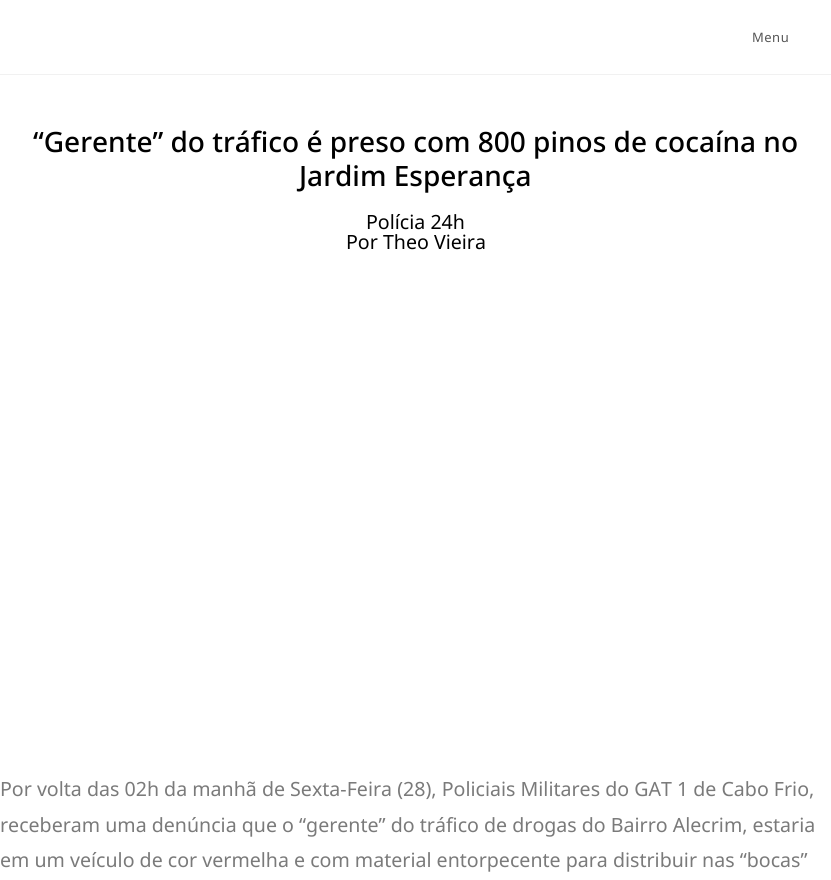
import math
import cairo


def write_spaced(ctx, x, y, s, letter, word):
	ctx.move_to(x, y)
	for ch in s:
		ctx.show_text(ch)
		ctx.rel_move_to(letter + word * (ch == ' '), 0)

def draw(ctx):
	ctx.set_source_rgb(1, 1, 1)
	ctx.paint()
	ctx.set_source_rgb(0.945, 0.945, 0.945)
	ctx.rectangle(0, 74, 831, 1)
	ctx.fill()
	ctx.select_font_face('Noto Sans')
	ctx.set_font_size(13)
	ctx.set_source_rgb(0.333, 0.333, 0.333)
	write_spaced(ctx, 752, 42, 'Menu', 0.5, 0)
	ctx.select_font_face('Noto Sans Medium')
	ctx.set_font_size(28)
	ctx.set_source_rgb(0, 0, 0)
	ctx.move_to(33, 152)
	ctx.show_text('“Gerente” do tráfico é preso com 800 pinos de cocaína no')
	ctx.move_to(299, 186)
	ctx.show_text('Jardim Esperança')
	ctx.select_font_face('Noto Sans')
	ctx.set_font_size(19.6)
	ctx.move_to(366, 229)
	ctx.show_text('Polícia 24h')
	ctx.move_to(346, 249)
	ctx.show_text('Por Theo Vieira')
	ctx.set_source_rgb(0.478, 0.478, 0.478)
	for x, y, s in [
		(0, 796, 'Por volta das 02h da manhã de Sexta-Feira (28), Policiais Militares do GAT 1 de Cabo Frio,'),
		(0, 832, 'receberam uma denúncia que o “gerente” do tráfico de drogas do Bairro Alecrim, estaria'),
		(0, 867, 'em um veículo de cor vermelha e com material entorpecente para distribuir nas “bocas”'),
	]:
		ctx.move_to(x, y)
		ctx.show_text(s)


surface = cairo.ImageSurface(cairo.FORMAT_RGB24, 831, 880)
ctx = cairo.Context(surface)
options = cairo.FontOptions()
options.set_hint_metrics(cairo.HINT_METRICS_OFF)
options.set_hint_style(cairo.HINT_STYLE_NONE)
ctx.set_font_options(options)
ctx.set_miter_limit(4)
draw(ctx)
surface.write_to_png('image.png')
